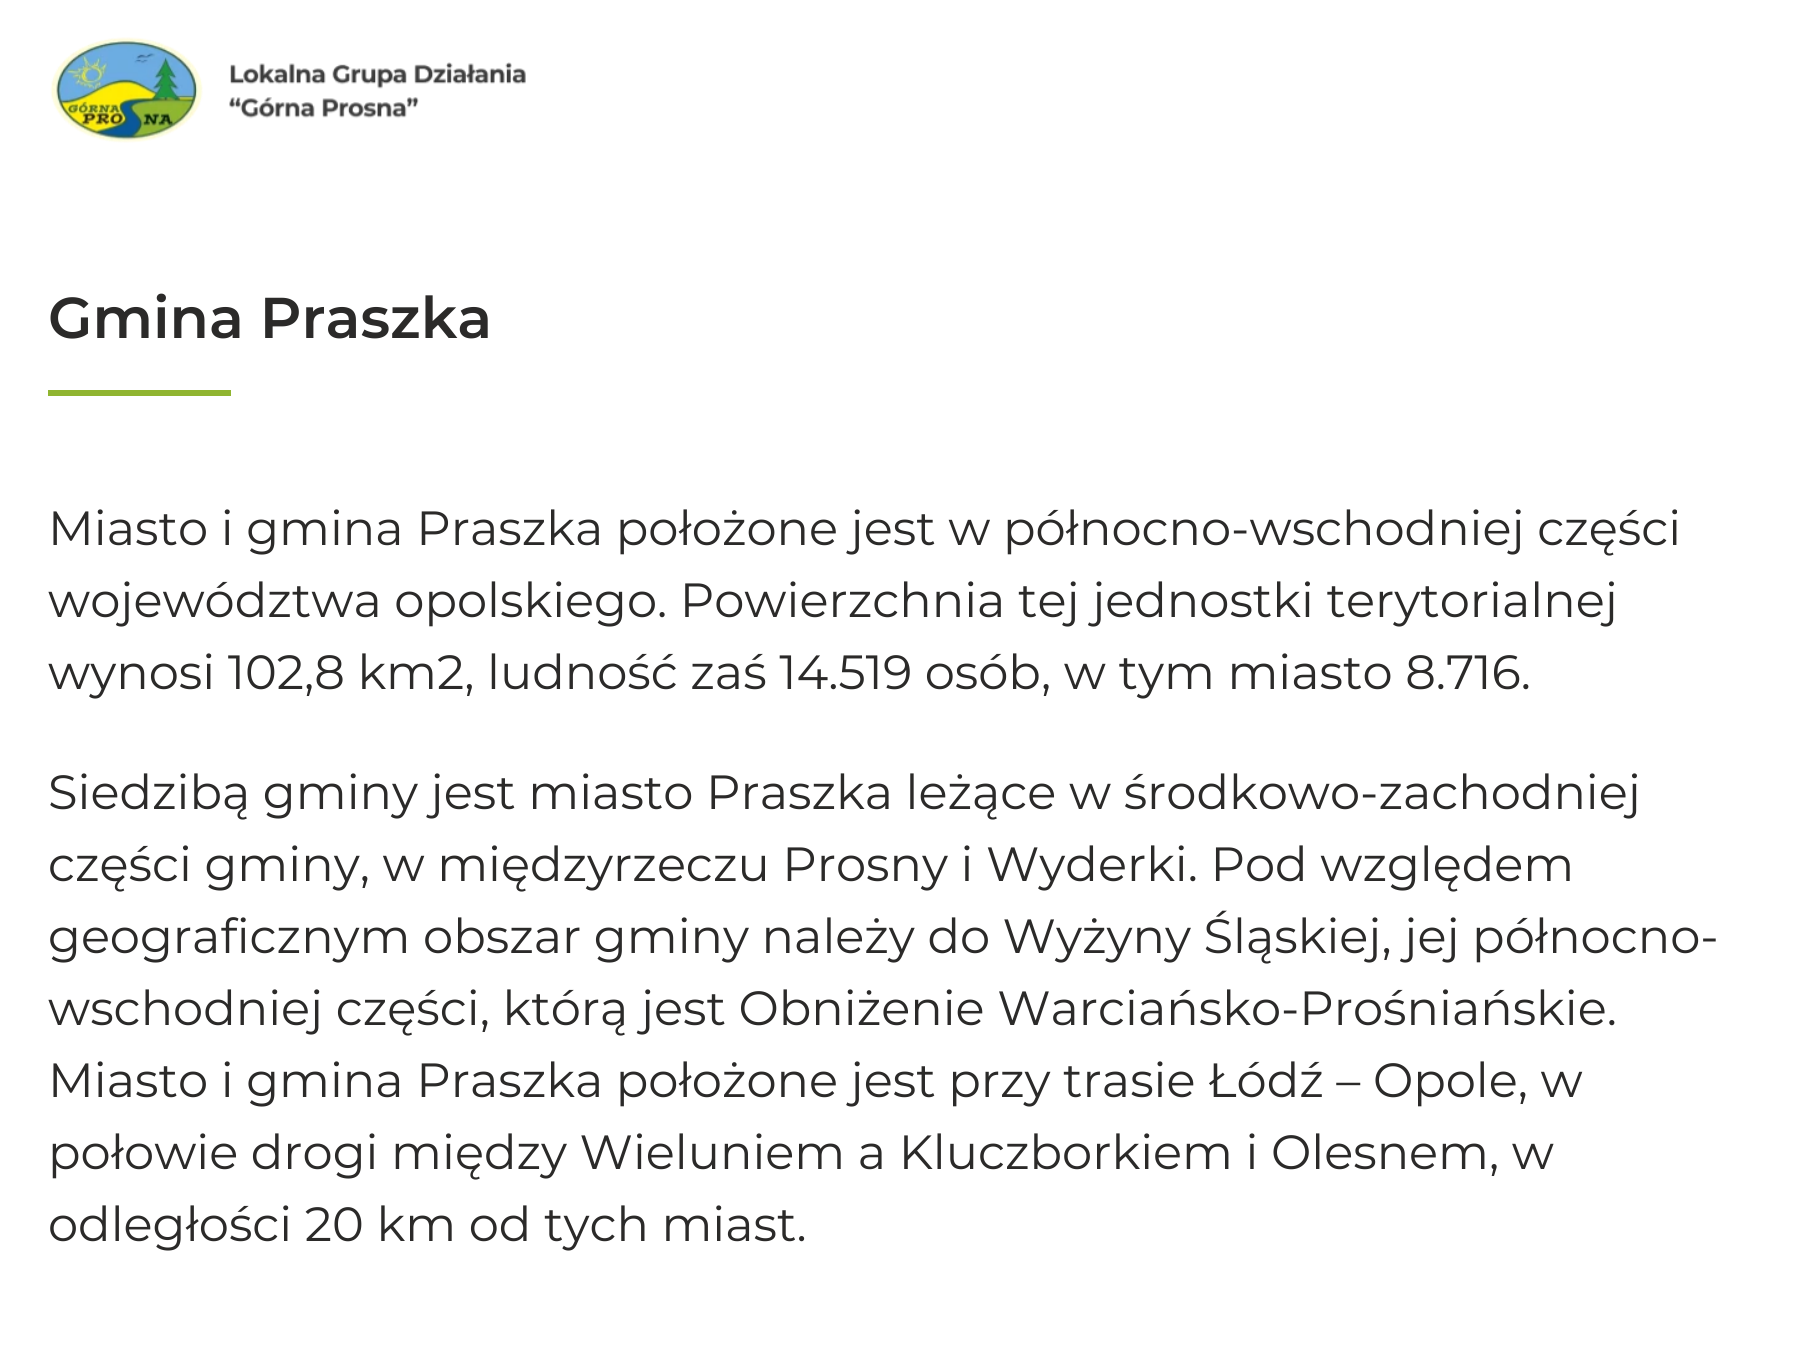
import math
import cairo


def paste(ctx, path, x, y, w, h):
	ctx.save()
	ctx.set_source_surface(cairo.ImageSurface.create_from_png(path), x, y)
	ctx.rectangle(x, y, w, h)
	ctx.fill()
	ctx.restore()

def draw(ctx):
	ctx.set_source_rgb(1, 1, 1)
	ctx.paint()
	paste(ctx, 'media/1.png', 50, 37, 476, 106)
	ctx.select_font_face('Montserrat SemiBold')
	ctx.set_font_size(57.5)
	ctx.set_source_rgb(0.169, 0.165, 0.161)
	ctx.move_to(48, 338)
	ctx.show_text('Gmina Praszka')
	ctx.set_source_rgb(0.565, 0.71, 0.192)
	ctx.rectangle(48, 390, 183, 6)
	ctx.fill()
	ctx.select_font_face('Montserrat')
	ctx.set_font_size(48)
	ctx.set_source_rgb(0.169, 0.165, 0.161)
	for x, y, s in [
		(48, 545, 'Miasto i gmina Praszka położone jest w północno-wschodniej części'),
		(48, 617, 'województwa opolskiego. Powierzchnia tej jednostki terytorialnej'),
		(48, 689, 'wynosi 102,8 km2, ludność zaś 14.519 osób, w tym miasto 8.716.'),
		(48, 809, 'Siedzibą gminy jest miasto Praszka leżące w środkowo-zachodniej'),
		(48, 881, 'części gminy, w międzyrzeczu Prosny i Wyderki. Pod względem'),
		(48, 953, 'geograficznym obszar gminy należy do Wyżyny Śląskiej, jej północno-'),
		(48, 1025, 'wschodniej części, którą jest Obniżenie Warciańsko-Prośniańskie.'),
		(48, 1097, 'Miasto i gmina Praszka położone jest przy trasie Łódź – Opole, w'),
		(48, 1169, 'połowie drogi między Wieluniem a Kluczborkiem i Olesnem, w'),
		(48, 1241, 'odległości 20 km od tych miast.'),
	]:
		ctx.move_to(x, y)
		ctx.show_text(s)


surface = cairo.ImageSurface(cairo.FORMAT_RGB24, 1816, 1351)
ctx = cairo.Context(surface)
options = cairo.FontOptions()
options.set_hint_metrics(cairo.HINT_METRICS_OFF)
options.set_hint_style(cairo.HINT_STYLE_NONE)
ctx.set_font_options(options)
ctx.set_miter_limit(4)
draw(ctx)
surface.write_to_png('image.png')
